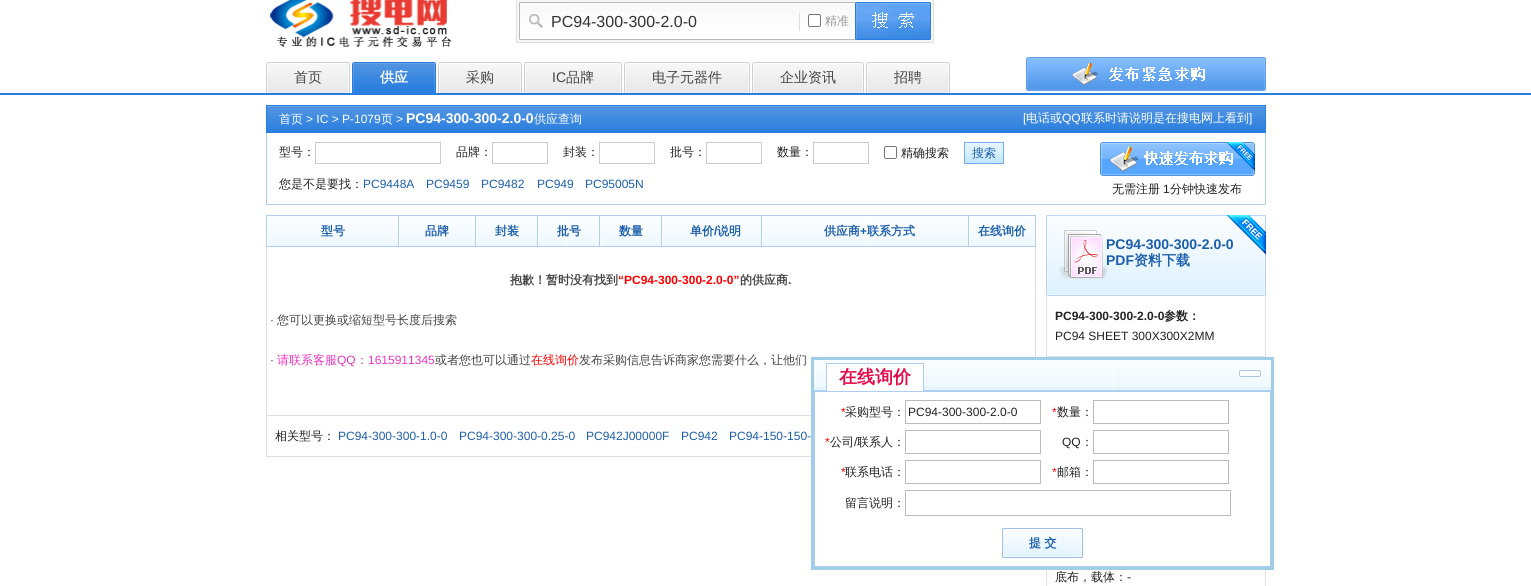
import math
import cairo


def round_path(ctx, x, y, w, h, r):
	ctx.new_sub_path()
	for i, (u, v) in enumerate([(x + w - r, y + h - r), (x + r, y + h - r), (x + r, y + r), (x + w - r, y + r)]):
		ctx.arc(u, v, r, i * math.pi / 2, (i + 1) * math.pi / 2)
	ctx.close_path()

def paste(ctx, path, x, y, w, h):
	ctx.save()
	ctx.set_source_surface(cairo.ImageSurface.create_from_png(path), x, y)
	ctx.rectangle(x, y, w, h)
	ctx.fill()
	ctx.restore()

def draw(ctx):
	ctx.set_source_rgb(1, 1, 1)
	ctx.paint()
	paste(ctx, 'media/1.png', 0, 90, 1531, 3)
	ctx.set_source_rgb(0.157, 0.49, 0.875)
	ctx.rectangle(0, 93, 1531, 2)
	ctx.fill()
	paste(ctx, 'media/2.png', 270, 0, 181, 47)
	paste(ctx, 'media/3.png', 516, 0, 418, 43)
	ctx.select_font_face('Liberation Sans')
	ctx.set_font_size(16)
	ctx.set_source_rgb(0.2, 0.2, 0.2)
	ctx.move_to(551, 27)
	ctx.show_text('PC94-300-300-2.0-0')
	paste(ctx, 'media/4.png', 855, 1, 76, 38)
	ctx.set_source_rgb(0.867, 0.867, 0.867)
	ctx.rectangle(799, 13, 1, 18)
	ctx.fill()
	ctx.set_source_rgb(1, 1, 1)
	round_path(ctx, 808.5, 14.5, 12, 12, 1.5)
	ctx.fill_preserve()
	ctx.set_source_rgb(0.463, 0.463, 0.463)
	ctx.set_line_width(1)
	ctx.stroke()
	ctx.select_font_face('WenQuanYi Zen Hei Medium')
	ctx.set_font_size(12)
	ctx.set_source_rgb(0.6, 0.6, 0.6)
	ctx.move_to(825, 25)
	ctx.show_text('精准')
	paste(ctx, 'media/5.png', 266, 62, 82, 31)
	paste(ctx, 'media/6.png', 348, 62, 2, 31)
	ctx.set_font_size(14)
	ctx.set_source_rgb(0.267, 0.267, 0.267)
	ctx.move_to(294, 82)
	ctx.show_text('首页')
	paste(ctx, 'media/7.png', 352, 62, 82, 31)
	paste(ctx, 'media/8.png', 434, 62, 2, 31)
	ctx.select_font_face('WenQuanYi Zen Hei', cairo.FONT_SLANT_NORMAL, cairo.FONT_WEIGHT_BOLD)
	ctx.set_source_rgb(1, 1, 1)
	ctx.move_to(380, 82)
	ctx.show_text('供应')
	paste(ctx, 'media/5.png', 438, 62, 82, 31)
	paste(ctx, 'media/6.png', 520, 62, 2, 31)
	ctx.select_font_face('WenQuanYi Zen Hei Medium')
	ctx.set_source_rgb(0.267, 0.267, 0.267)
	ctx.move_to(466, 82)
	ctx.show_text('采购')
	paste(ctx, 'media/9.png', 524, 62, 96, 31)
	paste(ctx, 'media/6.png', 620, 62, 2, 31)
	ctx.select_font_face('Liberation Sans')
	ctx.move_to(552, 82)
	ctx.show_text('IC')
	ctx.select_font_face('WenQuanYi Zen Hei Medium')
	ctx.move_to(566, 82)
	ctx.show_text('品牌')
	paste(ctx, 'media/10.png', 624, 62, 124, 31)
	paste(ctx, 'media/6.png', 748, 62, 2, 31)
	ctx.move_to(652, 82)
	ctx.show_text('电子元器件')
	paste(ctx, 'media/11.png', 752, 62, 110, 31)
	paste(ctx, 'media/6.png', 862, 62, 2, 31)
	ctx.move_to(780, 82)
	ctx.show_text('企业资讯')
	paste(ctx, 'media/5.png', 866, 62, 82, 31)
	paste(ctx, 'media/6.png', 948, 62, 2, 31)
	ctx.move_to(894, 82)
	ctx.show_text('招聘')
	paste(ctx, 'media/12.png', 1026, 57, 240, 34)
	ctx.rectangle(266.5, 105.5, 999, 99)
	ctx.set_source_rgb(0.706, 0.808, 0.925)
	ctx.stroke()
	paste(ctx, 'media/13.png', 267, 106, 998, 26)
	ctx.rectangle(266.5, 105.5, 999, 27)
	ctx.set_source_rgb(0.157, 0.49, 0.875)
	ctx.stroke()
	ctx.set_font_size(12)
	ctx.set_source_rgb(1, 1, 1)
	ctx.move_to(279, 123)
	ctx.show_text('首页')
	ctx.select_font_face('Liberation Sans')
	ctx.move_to(306, 123)
	ctx.show_text('> IC > P-1079')
	ctx.select_font_face('WenQuanYi Zen Hei Medium')
	ctx.move_to(381, 123)
	ctx.show_text('页')
	ctx.select_font_face('Liberation Sans')
	ctx.move_to(396, 123)
	ctx.show_text('>')
	ctx.select_font_face('Liberation Sans', cairo.FONT_SLANT_NORMAL, cairo.FONT_WEIGHT_BOLD)
	ctx.set_font_size(14)
	ctx.move_to(406, 123)
	ctx.show_text('PC94-300-300-2.0-0')
	ctx.select_font_face('WenQuanYi Zen Hei Medium')
	ctx.set_font_size(12)
	ctx.move_to(534, 123)
	ctx.show_text('供应查询')
	ctx.select_font_face('Liberation Sans')
	ctx.move_to(1023, 122)
	ctx.show_text('[')
	ctx.select_font_face('WenQuanYi Zen Hei Medium')
	ctx.move_to(1026, 122)
	ctx.show_text('电话或')
	ctx.select_font_face('Liberation Sans')
	ctx.move_to(1062, 122)
	ctx.show_text('QQ')
	ctx.select_font_face('WenQuanYi Zen Hei Medium')
	ctx.move_to(1081, 122)
	ctx.show_text('联系时请说明是在搜电网上看到')
	ctx.select_font_face('Liberation Sans')
	ctx.move_to(1249, 122)
	ctx.show_text(']')
	ctx.select_font_face('WenQuanYi Zen Hei Medium')
	ctx.set_source_rgb(0.133, 0.133, 0.133)
	ctx.move_to(279, 156)
	ctx.show_text('型号：')
	ctx.rectangle(315.5, 142.5, 125, 21)
	ctx.set_source_rgb(0.8, 0.8, 0.8)
	ctx.stroke()
	ctx.set_source_rgb(0.133, 0.133, 0.133)
	ctx.move_to(456, 156)
	ctx.show_text('品牌：')
	ctx.rectangle(492.5, 142.5, 55, 21)
	ctx.set_source_rgb(0.8, 0.8, 0.8)
	ctx.stroke()
	ctx.set_source_rgb(0.133, 0.133, 0.133)
	ctx.move_to(563, 156)
	ctx.show_text('封装：')
	ctx.rectangle(599.5, 142.5, 55, 21)
	ctx.set_source_rgb(0.8, 0.8, 0.8)
	ctx.stroke()
	ctx.set_source_rgb(0.133, 0.133, 0.133)
	ctx.move_to(670, 156)
	ctx.show_text('批号：')
	ctx.rectangle(706.5, 142.5, 55, 21)
	ctx.set_source_rgb(0.8, 0.8, 0.8)
	ctx.stroke()
	ctx.set_source_rgb(0.133, 0.133, 0.133)
	ctx.move_to(777, 156)
	ctx.show_text('数量：')
	ctx.rectangle(813.5, 142.5, 55, 21)
	ctx.set_source_rgb(0.8, 0.8, 0.8)
	ctx.stroke()
	round_path(ctx, 884.5, 146.5, 12, 12, 1.5)
	ctx.set_source_rgb(0.463, 0.463, 0.463)
	ctx.stroke()
	ctx.set_source_rgb(0.133, 0.133, 0.133)
	ctx.move_to(901, 157)
	ctx.show_text('精确搜索')
	paste(ctx, 'media/14.png', 965, 143, 38, 20)
	ctx.rectangle(964.5, 142.5, 39, 21)
	ctx.set_source_rgb(0.467, 0.678, 0.922)
	ctx.stroke()
	ctx.set_source_rgb(0.11, 0.369, 0.667)
	ctx.move_to(972, 157)
	ctx.show_text('搜索')
	ctx.set_source_rgb(0.133, 0.133, 0.133)
	ctx.move_to(279, 188)
	ctx.show_text('您是不是要找：')
	ctx.select_font_face('Liberation Sans')
	ctx.set_source_rgb(0.11, 0.369, 0.667)
	for x, y, s in [
		(363, 188, 'PC9448A'),
		(426, 188, 'PC9459'),
		(481, 188, 'PC9482'),
		(537, 188, 'PC949'),
		(585, 188, 'PC95005N'),
	]:
		ctx.move_to(x, y)
		ctx.show_text(s)
	paste(ctx, 'media/15.png', 1100, 142, 155, 34)
	ctx.select_font_face('WenQuanYi Zen Hei Medium')
	ctx.set_source_rgb(0.133, 0.133, 0.133)
	ctx.move_to(1112, 193)
	ctx.show_text('无需注册')
	ctx.select_font_face('Liberation Sans')
	ctx.move_to(1163, 193)
	ctx.show_text('1')
	ctx.select_font_face('WenQuanYi Zen Hei Medium')
	ctx.move_to(1170, 193)
	ctx.show_text('分钟快速发布')
	ctx.rectangle(266.5, 215.5, 769, 241)
	ctx.set_source_rgb(0.878, 0.878, 0.878)
	ctx.stroke()
	paste(ctx, 'media/16.png', 268, 216, 767, 30)
	ctx.rectangle(266.5, 215.5, 769, 31)
	ctx.set_source_rgb(0.706, 0.808, 0.925)
	ctx.stroke()
	ctx.rectangle(398, 216, 1, 30)
	ctx.fill()
	ctx.set_source_rgb(0.98, 0.992, 1)
	ctx.rectangle(267, 216, 1, 30)
	ctx.fill()
	ctx.select_font_face('WenQuanYi Zen Hei', cairo.FONT_SLANT_NORMAL, cairo.FONT_WEIGHT_BOLD)
	ctx.set_source_rgb(0.11, 0.369, 0.667)
	ctx.move_to(321, 235)
	ctx.show_text('型号')
	ctx.set_source_rgb(0.706, 0.808, 0.925)
	ctx.rectangle(475, 216, 1, 30)
	ctx.fill()
	ctx.set_source_rgb(0.98, 0.992, 1)
	ctx.rectangle(399, 216, 1, 30)
	ctx.fill()
	ctx.set_source_rgb(0.11, 0.369, 0.667)
	ctx.move_to(425, 235)
	ctx.show_text('品牌')
	ctx.set_source_rgb(0.706, 0.808, 0.925)
	ctx.rectangle(537, 216, 1, 30)
	ctx.fill()
	ctx.set_source_rgb(0.98, 0.992, 1)
	ctx.rectangle(476, 216, 1, 30)
	ctx.fill()
	ctx.set_source_rgb(0.11, 0.369, 0.667)
	ctx.move_to(495, 235)
	ctx.show_text('封装')
	ctx.set_source_rgb(0.706, 0.808, 0.925)
	ctx.rectangle(599, 216, 1, 30)
	ctx.fill()
	ctx.set_source_rgb(0.98, 0.992, 1)
	ctx.rectangle(538, 216, 1, 30)
	ctx.fill()
	ctx.set_source_rgb(0.11, 0.369, 0.667)
	ctx.move_to(557, 235)
	ctx.show_text('批号')
	ctx.set_source_rgb(0.706, 0.808, 0.925)
	ctx.rectangle(661, 216, 1, 30)
	ctx.fill()
	ctx.set_source_rgb(0.98, 0.992, 1)
	ctx.rectangle(600, 216, 1, 30)
	ctx.fill()
	ctx.set_source_rgb(0.11, 0.369, 0.667)
	ctx.move_to(619, 235)
	ctx.show_text('数量')
	ctx.set_source_rgb(0.706, 0.808, 0.925)
	ctx.rectangle(761, 216, 1, 30)
	ctx.fill()
	ctx.set_source_rgb(0.98, 0.992, 1)
	ctx.rectangle(662, 216, 1, 30)
	ctx.fill()
	ctx.set_source_rgb(0.11, 0.369, 0.667)
	ctx.move_to(690, 235)
	ctx.show_text('单价')
	ctx.select_font_face('Liberation Sans', cairo.FONT_SLANT_NORMAL, cairo.FONT_WEIGHT_BOLD)
	ctx.move_to(714, 235)
	ctx.show_text('/')
	ctx.select_font_face('WenQuanYi Zen Hei', cairo.FONT_SLANT_NORMAL, cairo.FONT_WEIGHT_BOLD)
	ctx.move_to(717, 235)
	ctx.show_text('说明')
	ctx.set_source_rgb(0.706, 0.808, 0.925)
	ctx.rectangle(968, 216, 1, 30)
	ctx.fill()
	ctx.set_source_rgb(0.98, 0.992, 1)
	ctx.rectangle(762, 216, 1, 30)
	ctx.fill()
	ctx.set_source_rgb(0.11, 0.369, 0.667)
	ctx.move_to(824, 235)
	ctx.show_text('供应商')
	ctx.select_font_face('Liberation Sans', cairo.FONT_SLANT_NORMAL, cairo.FONT_WEIGHT_BOLD)
	ctx.move_to(860, 235)
	ctx.show_text('+')
	ctx.select_font_face('WenQuanYi Zen Hei', cairo.FONT_SLANT_NORMAL, cairo.FONT_WEIGHT_BOLD)
	ctx.move_to(867, 235)
	ctx.show_text('联系方式')
	ctx.set_source_rgb(0.98, 0.992, 1)
	ctx.rectangle(969, 216, 1, 30)
	ctx.fill()
	ctx.set_source_rgb(0.11, 0.369, 0.667)
	ctx.move_to(978, 235)
	ctx.show_text('在线询价')
	ctx.set_source_rgb(0.878, 0.878, 0.878)
	ctx.rectangle(267, 415, 544, 1)
	ctx.fill()
	ctx.set_source_rgb(0.267, 0.267, 0.267)
	ctx.move_to(510, 284)
	ctx.show_text('抱歉！暂时没有找到')
	ctx.select_font_face('Liberation Sans', cairo.FONT_SLANT_NORMAL, cairo.FONT_WEIGHT_BOLD)
	ctx.set_source_rgb(1, 0, 0)
	ctx.move_to(618, 284)
	ctx.show_text('“PC94-300-300-2.0-0”')
	ctx.select_font_face('WenQuanYi Zen Hei', cairo.FONT_SLANT_NORMAL, cairo.FONT_WEIGHT_BOLD)
	ctx.set_source_rgb(0.267, 0.267, 0.267)
	ctx.move_to(740, 284)
	ctx.show_text('的供应商')
	ctx.select_font_face('Liberation Sans', cairo.FONT_SLANT_NORMAL, cairo.FONT_WEIGHT_BOLD)
	ctx.move_to(788, 284)
	ctx.show_text('.')
	ctx.select_font_face('Liberation Sans')
	ctx.move_to(270, 324)
	ctx.show_text('·')
	ctx.select_font_face('WenQuanYi Zen Hei Medium')
	ctx.move_to(277, 324)
	ctx.show_text('您可以更换或缩短型号长度后搜索')
	ctx.select_font_face('Liberation Sans')
	ctx.move_to(270, 364)
	ctx.show_text('·')
	ctx.select_font_face('WenQuanYi Zen Hei Medium')
	ctx.set_source_rgb(0.941, 0.204, 0.757)
	ctx.move_to(277, 364)
	ctx.show_text('请联系客服')
	ctx.select_font_face('Liberation Sans')
	ctx.move_to(337, 364)
	ctx.show_text('QQ')
	ctx.select_font_face('WenQuanYi Zen Hei Medium')
	ctx.move_to(356, 364)
	ctx.show_text('：')
	ctx.select_font_face('Liberation Sans')
	ctx.move_to(368, 364)
	ctx.show_text('1615911345')
	ctx.select_font_face('WenQuanYi Zen Hei Medium')
	ctx.set_source_rgb(0.267, 0.267, 0.267)
	ctx.move_to(435, 364)
	ctx.show_text('或者您也可以通过')
	ctx.set_source_rgb(1, 0, 0)
	ctx.move_to(531, 364)
	ctx.show_text('在线询价')
	ctx.set_source_rgb(0.267, 0.267, 0.267)
	ctx.move_to(579, 364)
	ctx.show_text('发布采购信息告诉商家您需要什么，让他们')
	ctx.set_source_rgb(0.133, 0.133, 0.133)
	ctx.move_to(275, 440)
	ctx.show_text('相关型号：')
	ctx.select_font_face('Liberation Sans')
	ctx.set_source_rgb(0.11, 0.369, 0.667)
	for x, y, s in [
		(338, 440, 'PC94-300-300-1.0-0'),
		(459, 440, 'PC94-300-300-0.25-0'),
		(586, 440, 'PC942J00000F'),
		(681, 440, 'PC942'),
		(729, 440, 'PC94-150-150-'),
	]:
		ctx.move_to(x, y)
		ctx.show_text(s)
	paste(ctx, 'media/17.png', 1046, 215, 220, 81)
	ctx.select_font_face('Liberation Sans', cairo.FONT_SLANT_NORMAL, cairo.FONT_WEIGHT_BOLD)
	ctx.set_font_size(14)
	ctx.move_to(1106, 249)
	ctx.show_text('PC94-300-300-2.0-0')
	ctx.move_to(1106, 265)
	ctx.show_text('PDF')
	ctx.select_font_face('WenQuanYi Zen Hei', cairo.FONT_SLANT_NORMAL, cairo.FONT_WEIGHT_BOLD)
	ctx.move_to(1134, 265)
	ctx.show_text('资料下载')
	ctx.set_source_rgb(0.878, 0.878, 0.878)
	ctx.rectangle(1265, 296, 1, 61)
	ctx.rectangle(1046, 356, 220, 1)
	ctx.rectangle(1046, 296, 1, 61)
	ctx.fill()
	ctx.select_font_face('Liberation Sans', cairo.FONT_SLANT_NORMAL, cairo.FONT_WEIGHT_BOLD)
	ctx.set_font_size(12)
	ctx.set_source_rgb(0.133, 0.133, 0.133)
	ctx.move_to(1055, 320)
	ctx.show_text('PC94-300-300-2.0-0')
	ctx.select_font_face('WenQuanYi Zen Hei', cairo.FONT_SLANT_NORMAL, cairo.FONT_WEIGHT_BOLD)
	ctx.move_to(1164, 320)
	ctx.show_text('参数：')
	ctx.select_font_face('Liberation Sans')
	ctx.move_to(1055, 340)
	ctx.show_text('PC94 SHEET 300X300X2MM')
	ctx.set_source_rgb(0.878, 0.878, 0.878)
	ctx.rectangle(1265, 570, 1, 16)
	ctx.fill()
	ctx.rectangle(1046, 570, 1, 16)
	ctx.fill()
	ctx.select_font_face('WenQuanYi Zen Hei Medium')
	ctx.set_source_rgb(0.133, 0.133, 0.133)
	ctx.move_to(1055, 581)
	ctx.show_text('底布，载体：')
	ctx.select_font_face('Liberation Sans')
	ctx.move_to(1127, 581)
	ctx.show_text('-')
	ctx.set_source_rgb(1, 1, 1)
	ctx.rectangle(815, 392, 221, 65)
	ctx.fill()
	ctx.rectangle(812.5, 358.5, 460, 210)
	ctx.set_source_rgb(0.627, 0.804, 0.91)
	ctx.set_line_width(3)
	ctx.stroke()
	paste(ctx, 'media/18.png', 814, 360, 457, 30)
	ctx.set_source_rgb(0.682, 0.804, 0.941)
	ctx.rectangle(814, 390, 457, 1)
	ctx.fill()
	ctx.set_source_rgb(1, 1, 1)
	ctx.rectangle(827, 364, 96, 27)
	ctx.fill()
	ctx.set_source_rgb(0.682, 0.804, 0.941)
	ctx.rectangle(826, 363, 98, 1)
	ctx.rectangle(923, 363, 1, 28)
	ctx.rectangle(826, 363, 1, 28)
	ctx.fill()
	ctx.select_font_face('WenQuanYi Zen Hei', cairo.FONT_SLANT_NORMAL, cairo.FONT_WEIGHT_BOLD)
	ctx.set_font_size(18)
	ctx.set_source_rgb(0.89, 0.035, 0.278)
	ctx.move_to(839, 383)
	ctx.show_text('在线询价')
	ctx.set_source_rgb(1, 1, 1)
	round_path(ctx, 1239, 370, 22, 7, 2)
	ctx.fill()
	ctx.set_source_rgb(0.98, 0.992, 1)
	ctx.rectangle(1241, 373, 20, 4)
	ctx.fill()
	round_path(ctx, 1239.5, 370.5, 21, 6, 1.5)
	ctx.set_source_rgb(0.675, 0.78, 0.902)
	ctx.set_line_width(1)
	ctx.stroke()
	ctx.rectangle(814.5, 391.5, 456, 175)
	ctx.set_source_rgb(0.682, 0.804, 0.941)
	ctx.stroke()
	ctx.select_font_face('Liberation Sans')
	ctx.set_font_size(12)
	ctx.set_source_rgb(1, 0, 0)
	ctx.move_to(841, 416)
	ctx.show_text('*')
	ctx.select_font_face('WenQuanYi Zen Hei Medium')
	ctx.set_source_rgb(0.133, 0.133, 0.133)
	ctx.move_to(845, 416)
	ctx.show_text('采购型号：')
	ctx.rectangle(905.5, 400.5, 135, 23)
	ctx.set_source_rgb(0.733, 0.733, 0.733)
	ctx.stroke()
	ctx.select_font_face('Liberation Sans')
	ctx.set_source_rgb(0.133, 0.133, 0.133)
	ctx.move_to(908, 416)
	ctx.show_text('PC94-300-300-2.0-0')
	ctx.set_source_rgb(1, 0, 0)
	ctx.move_to(1052, 416)
	ctx.show_text('*')
	ctx.select_font_face('WenQuanYi Zen Hei Medium')
	ctx.set_source_rgb(0.133, 0.133, 0.133)
	ctx.move_to(1057, 416)
	ctx.show_text('数量：')
	ctx.rectangle(1093.5, 400.5, 135, 23)
	ctx.set_source_rgb(0.733, 0.733, 0.733)
	ctx.stroke()
	ctx.select_font_face('Liberation Sans')
	ctx.set_source_rgb(1, 0, 0)
	ctx.move_to(825, 446)
	ctx.show_text('*')
	ctx.select_font_face('WenQuanYi Zen Hei Medium')
	ctx.set_source_rgb(0.133, 0.133, 0.133)
	ctx.move_to(830, 446)
	ctx.show_text('公司')
	ctx.select_font_face('Liberation Sans')
	ctx.move_to(854, 446)
	ctx.show_text('/')
	ctx.select_font_face('WenQuanYi Zen Hei Medium')
	ctx.move_to(857, 446)
	ctx.show_text('联系人：')
	ctx.rectangle(905.5, 430.5, 135, 23)
	ctx.set_source_rgb(0.733, 0.733, 0.733)
	ctx.stroke()
	ctx.select_font_face('Liberation Sans')
	ctx.set_source_rgb(0.133, 0.133, 0.133)
	ctx.move_to(1062, 446)
	ctx.show_text('QQ')
	ctx.select_font_face('WenQuanYi Zen Hei Medium')
	ctx.move_to(1081, 446)
	ctx.show_text('：')
	ctx.rectangle(1093.5, 430.5, 135, 23)
	ctx.set_source_rgb(0.733, 0.733, 0.733)
	ctx.stroke()
	ctx.select_font_face('Liberation Sans')
	ctx.set_source_rgb(1, 0, 0)
	ctx.move_to(841, 476)
	ctx.show_text('*')
	ctx.select_font_face('WenQuanYi Zen Hei Medium')
	ctx.set_source_rgb(0.133, 0.133, 0.133)
	ctx.move_to(845, 476)
	ctx.show_text('联系电话：')
	ctx.rectangle(905.5, 460.5, 135, 23)
	ctx.set_source_rgb(0.733, 0.733, 0.733)
	ctx.stroke()
	ctx.select_font_face('Liberation Sans')
	ctx.set_source_rgb(1, 0, 0)
	ctx.move_to(1052, 476)
	ctx.show_text('*')
	ctx.select_font_face('WenQuanYi Zen Hei Medium')
	ctx.set_source_rgb(0.133, 0.133, 0.133)
	ctx.move_to(1057, 476)
	ctx.show_text('邮箱：')
	ctx.rectangle(1093.5, 460.5, 135, 23)
	ctx.set_source_rgb(0.733, 0.733, 0.733)
	ctx.stroke()
	ctx.set_source_rgb(0.133, 0.133, 0.133)
	ctx.move_to(845, 507)
	ctx.show_text('留言说明：')
	ctx.rectangle(905.5, 490.5, 325, 25)
	ctx.set_source_rgb(0.733, 0.733, 0.733)
	ctx.stroke()
	paste(ctx, 'media/19.png', 1002, 528, 81, 30)
	ctx.select_font_face('WenQuanYi Zen Hei', cairo.FONT_SLANT_NORMAL, cairo.FONT_WEIGHT_BOLD)
	ctx.set_source_rgb(0.11, 0.369, 0.667)
	ctx.move_to(1029, 547)
	ctx.show_text('提 交')


surface = cairo.ImageSurface(cairo.FORMAT_RGB24, 1531, 586)
ctx = cairo.Context(surface)
options = cairo.FontOptions()
options.set_hint_metrics(cairo.HINT_METRICS_OFF)
options.set_hint_style(cairo.HINT_STYLE_NONE)
ctx.set_font_options(options)
ctx.set_miter_limit(4)
draw(ctx)
surface.write_to_png('image.png')
